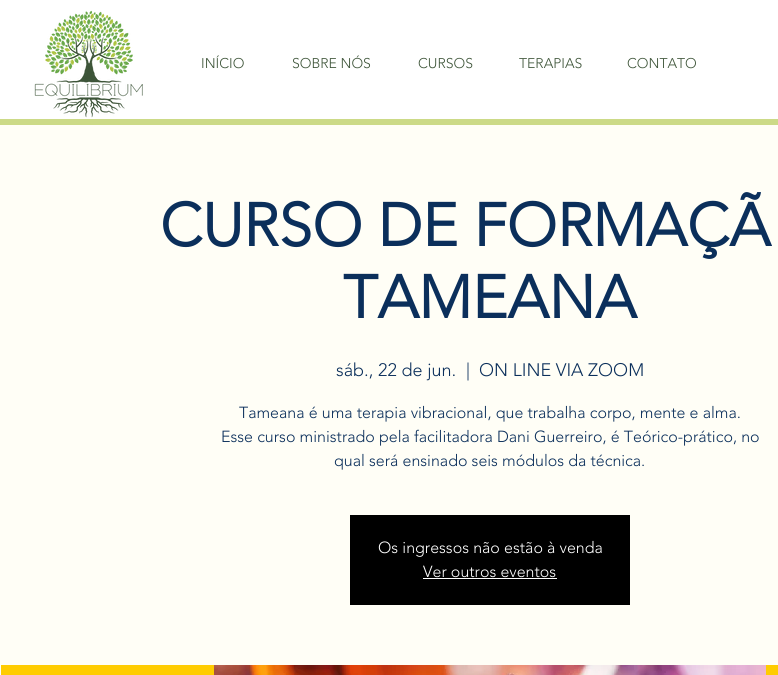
import math
import cairo


def paste(ctx, path, x, y, w, h):
	ctx.save()
	ctx.set_source_surface(cairo.ImageSurface.create_from_png(path), x, y)
	ctx.rectangle(x, y, w, h)
	ctx.fill()
	ctx.restore()

def draw(ctx):
	ctx.set_source_rgb(0.8, 0.855, 0.529)
	ctx.paint()
	ctx.set_source_rgb(1, 1, 1)
	ctx.rectangle(0, 0, 778, 119)
	ctx.fill()
	paste(ctx, 'media/1.png', 34, 10, 109, 108)
	ctx.select_font_face('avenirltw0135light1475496 Light')
	ctx.set_font_size(14)
	ctx.set_source_rgb(0.239, 0.329, 0.22)
	for x, y, s in [
		(201, 68, 'INÍCIO'),
		(292, 68, 'SOBRE NÓS'),
		(418, 68, 'CURSOS'),
		(519, 68, 'TERAPIAS'),
		(627, 68, 'CONTATO'),
	]:
		ctx.move_to(x, y)
		ctx.show_text(s)
	ctx.set_source_rgb(1, 0.996, 0.961)
	ctx.rectangle(0, 125, 778, 550)
	ctx.fill()
	ctx.select_font_face('avenirltw0135light1475496', cairo.FONT_SLANT_NORMAL, cairo.FONT_WEIGHT_BOLD)
	ctx.set_font_size(60)
	ctx.set_source_rgb(0.043, 0.184, 0.357)
	ctx.move_to(160, 246)
	ctx.show_text('CURSO DE FORMAÇÃ')
	ctx.move_to(343, 318)
	ctx.show_text('TAMEANA')
	ctx.select_font_face('avenirltw0135light1475496 Light')
	ctx.set_font_size(18)
	for x, y, s in [
		(336, 376, 'sáb., 22 de jun.'),
		(466, 376, '|'),
		(479, 376, 'ON LINE VIA ZOOM'),
	]:
		ctx.move_to(x, y)
		ctx.show_text(s)
	ctx.set_font_size(16)
	for x, y, s in [
		(239, 418, 'Tameana é uma terapia vibracional, que trabalha corpo, mente e alma.'),
		(221, 442, 'Esse curso ministrado pela facilitadora Dani Guerreiro, é Teórico-prático, no'),
		(334, 466, 'qual será ensinado seis módulos da técnica.'),
	]:
		ctx.move_to(x, y)
		ctx.show_text(s)
	ctx.set_source_rgb(0, 0, 0)
	ctx.rectangle(350, 515, 280, 90)
	ctx.fill()
	ctx.set_source_rgb(1, 1, 1)
	ctx.move_to(378, 553)
	ctx.show_text('Os ingressos não estão à venda')
	ctx.move_to(423, 577)
	ctx.show_text('Ver outros eventos')
	ctx.rectangle(423, 578, 134, 1)
	ctx.fill()
	ctx.set_source_rgb(1, 0.8, 0)
	ctx.rectangle(1, 665, 777, 10)
	ctx.fill()
	paste(ctx, 'media/2.png', 214, 665, 552, 10)


surface = cairo.ImageSurface(cairo.FORMAT_RGB24, 778, 675)
ctx = cairo.Context(surface)
options = cairo.FontOptions()
options.set_hint_metrics(cairo.HINT_METRICS_OFF)
options.set_hint_style(cairo.HINT_STYLE_NONE)
ctx.set_font_options(options)
ctx.set_miter_limit(4)
draw(ctx)
surface.write_to_png('image.png')
